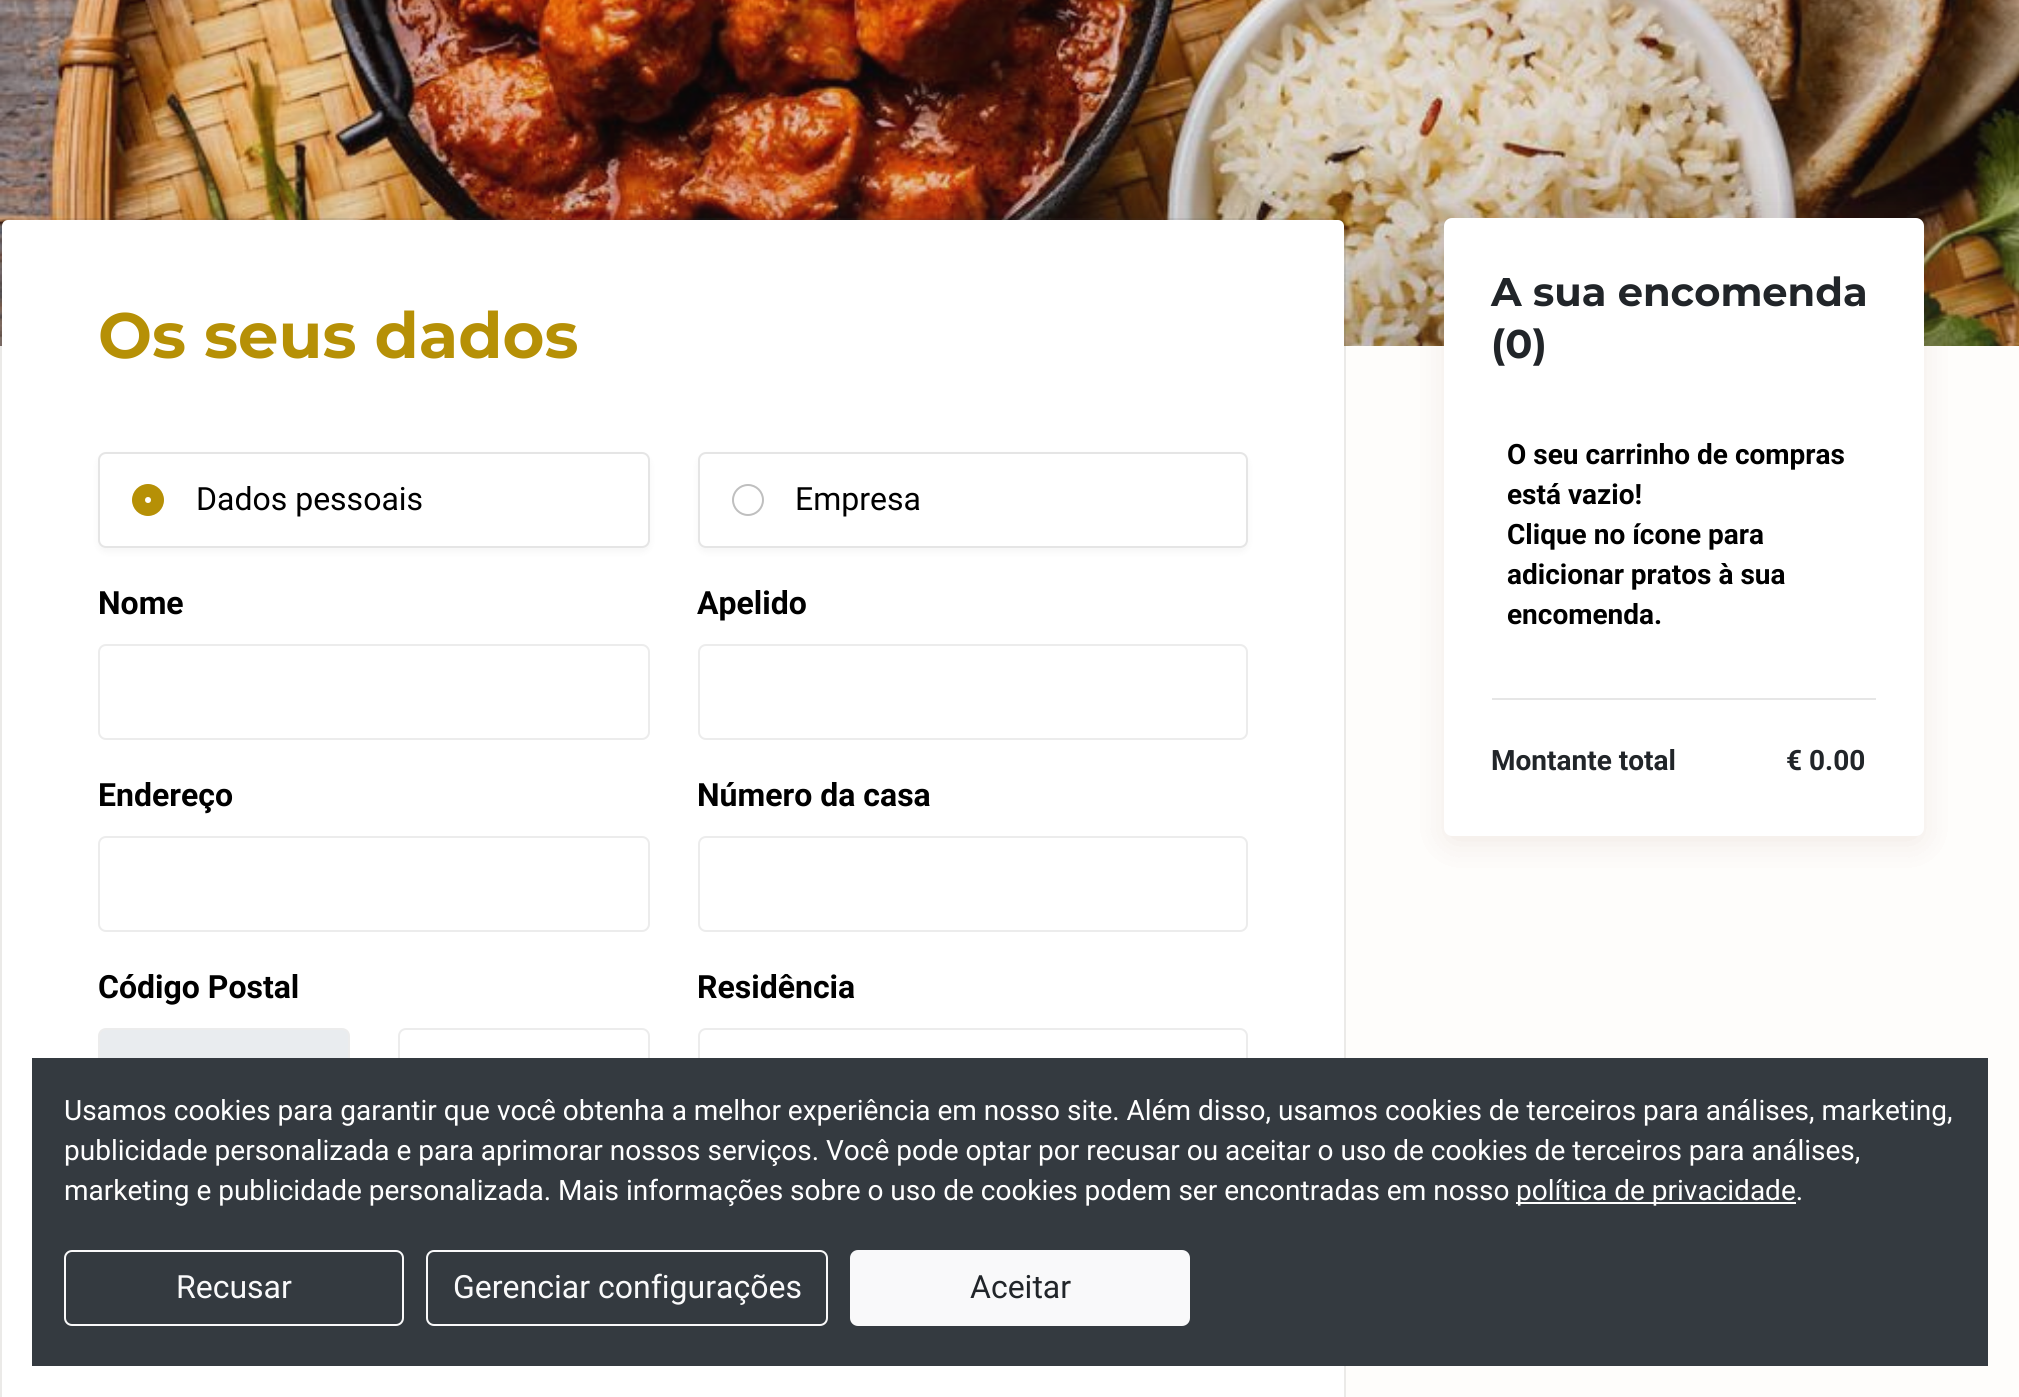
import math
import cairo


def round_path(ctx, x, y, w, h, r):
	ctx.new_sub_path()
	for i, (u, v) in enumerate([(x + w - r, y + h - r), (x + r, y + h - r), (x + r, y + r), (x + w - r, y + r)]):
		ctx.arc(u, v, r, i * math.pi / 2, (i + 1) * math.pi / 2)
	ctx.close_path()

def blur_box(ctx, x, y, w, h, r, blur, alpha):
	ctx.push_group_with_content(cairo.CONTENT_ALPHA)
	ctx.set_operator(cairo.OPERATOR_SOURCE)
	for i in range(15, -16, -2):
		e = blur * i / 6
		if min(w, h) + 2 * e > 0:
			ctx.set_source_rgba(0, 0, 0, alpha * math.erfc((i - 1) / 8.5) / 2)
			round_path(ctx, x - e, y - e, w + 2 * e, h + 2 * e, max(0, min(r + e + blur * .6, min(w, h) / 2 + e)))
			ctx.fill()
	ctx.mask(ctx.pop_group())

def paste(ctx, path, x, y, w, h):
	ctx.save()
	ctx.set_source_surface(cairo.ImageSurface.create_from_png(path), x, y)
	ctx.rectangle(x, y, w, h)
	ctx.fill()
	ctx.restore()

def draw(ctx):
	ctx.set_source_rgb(0.996, 0.992, 0.984)
	ctx.paint()
	paste(ctx, 'media/1.png', 0, 0, 2019, 346)
	ctx.set_source_rgb(1, 1, 1)
	round_path(ctx, 2, 220, 1342, 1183, 6)
	ctx.fill()
	round_path(ctx, 1, 219, 1344, 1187, 7)
	ctx.set_source_rgba(0.267, 0.267, 0.267, 0.1)
	ctx.stroke()
	ctx.select_font_face('Montserrat', cairo.FONT_SLANT_NORMAL, cairo.FONT_WEIGHT_BOLD)
	ctx.set_font_size(64)
	ctx.set_source_rgb(0.714, 0.565, 0.027)
	ctx.move_to(98, 358)
	ctx.show_text('Os seus dados')
	ctx.set_source_rgb(0, 0, 0)
	blur_box(ctx, 98, 456, 552, 96, 8, 4, 0.04)
	ctx.set_source_rgb(1, 1, 1)
	round_path(ctx, 99, 453, 550, 94, 7)
	ctx.fill_preserve()
	ctx.set_source_rgb(0.898, 0.898, 0.898)
	ctx.stroke()
	ctx.set_source_rgb(0.714, 0.565, 0.027)
	ctx.arc(148, 500, 15, 0, 2 * math.pi)
	ctx.fill_preserve()
	ctx.stroke()
	ctx.select_font_face('Roboto')
	ctx.set_font_size(32)
	ctx.set_source_rgb(0, 0, 0)
	ctx.move_to(196, 510)
	ctx.show_text('Dados pessoais')
	ctx.set_source_rgb(1, 1, 1)
	ctx.new_path()
	ctx.arc(148, 500, 3, 0, 2 * math.pi)
	ctx.fill()
	ctx.set_source_rgb(0, 0, 0)
	blur_box(ctx, 698, 456, 550, 96, 8, 4, 0.04)
	ctx.set_source_rgb(1, 1, 1)
	round_path(ctx, 699, 453, 548, 94, 7)
	ctx.fill_preserve()
	ctx.set_source_rgb(0.898, 0.898, 0.898)
	ctx.stroke()
	ctx.arc(748, 500, 15, 0, 2 * math.pi)
	ctx.set_source_rgb(0.749, 0.749, 0.749)
	ctx.stroke()
	ctx.set_source_rgb(0, 0, 0)
	ctx.move_to(795, 510)
	ctx.show_text('Empresa')
	ctx.select_font_face('Roboto', cairo.FONT_SLANT_NORMAL, cairo.FONT_WEIGHT_BOLD)
	ctx.move_to(98, 614)
	ctx.show_text('Nome')
	round_path(ctx, 99, 645, 550, 94, 7)
	ctx.set_source_rgb(0.925, 0.925, 0.925)
	ctx.stroke()
	ctx.set_source_rgb(0, 0, 0)
	ctx.move_to(697, 614)
	ctx.show_text('Apelido')
	round_path(ctx, 699, 645, 548, 94, 7)
	ctx.set_source_rgb(0.925, 0.925, 0.925)
	ctx.stroke()
	ctx.set_source_rgb(0, 0, 0)
	ctx.move_to(98, 806)
	ctx.show_text('Endereço')
	round_path(ctx, 99, 837, 550, 94, 7)
	ctx.set_source_rgb(0.925, 0.925, 0.925)
	ctx.stroke()
	ctx.set_source_rgb(0, 0, 0)
	ctx.move_to(697, 806)
	ctx.show_text('Número da casa')
	round_path(ctx, 699, 837, 548, 94, 7)
	ctx.set_source_rgb(0.925, 0.925, 0.925)
	ctx.stroke()
	ctx.set_source_rgb(0, 0, 0)
	ctx.move_to(98, 998)
	ctx.show_text('Código Postal')
	ctx.set_source_rgb(0.914, 0.925, 0.937)
	round_path(ctx, 100, 1030, 248, 92, 6)
	ctx.fill()
	round_path(ctx, 99, 1029, 250, 94, 7)
	ctx.set_source_rgba(0.267, 0.267, 0.267, 0.1)
	ctx.stroke()
	ctx.set_source_rgb(0, 0, 0)
	ctx.move_to(697, 998)
	ctx.show_text('Residência')
	round_path(ctx, 699, 1029, 548, 94, 7)
	ctx.set_source_rgb(0.925, 0.925, 0.925)
	ctx.stroke()
	round_path(ctx, 399, 1029, 250, 94, 7)
	ctx.stroke()
	ctx.set_source_rgb(1, 0.486, 0.275)
	blur_box(ctx, 1444, 226, 480, 618, 8, 16, 0.05)
	ctx.set_source_rgb(0, 0, 0)
	blur_box(ctx, 1444, 226, 480, 618, 8, 16, 0.05)
	ctx.set_source_rgb(1, 1, 1)
	round_path(ctx, 1444, 218, 480, 618, 8)
	ctx.fill()
	ctx.select_font_face('Montserrat', cairo.FONT_SLANT_NORMAL, cairo.FONT_WEIGHT_BOLD)
	ctx.set_font_size(40)
	ctx.set_source_rgb(0.129, 0.145, 0.161)
	ctx.move_to(1491, 306)
	ctx.show_text('A sua encomenda')
	ctx.move_to(1491, 358)
	ctx.show_text('(0)')
	ctx.select_font_face('Roboto', cairo.FONT_SLANT_NORMAL, cairo.FONT_WEIGHT_BOLD)
	ctx.set_font_size(28)
	ctx.set_source_rgb(0, 0, 0)
	for x, y, s in [
		(1507, 464, 'O seu carrinho de compras'),
		(1507, 504, 'está vazio!'),
		(1507, 544, 'Clique no ícone para'),
		(1507, 584, 'adicionar pratos à sua'),
		(1507, 624, 'encomenda.'),
	]:
		ctx.move_to(x, y)
		ctx.show_text(s)
	ctx.set_source_rgb(0.902, 0.902, 0.902)
	ctx.rectangle(1492, 698, 384, 2)
	ctx.fill()
	ctx.set_source_rgb(0.129, 0.145, 0.161)
	ctx.move_to(1491, 770)
	ctx.show_text('Montante total')
	ctx.move_to(1786, 770)
	ctx.show_text('€ 0.00')
	ctx.set_source_rgb(0.204, 0.227, 0.251)
	ctx.rectangle(32, 1058, 1956, 308)
	ctx.fill()
	ctx.select_font_face('Roboto')
	ctx.set_source_rgb(1, 1, 1)
	for x, y, s in [
		(64, 1120, 'Usamos cookies para garantir que você obtenha a melhor experiência em nosso site. Além disso, usamos cookies de terceiros para análises, marketing,'),
		(64, 1160, 'publicidade personalizada e para aprimorar nossos serviços. Você pode optar por recusar ou aceitar o uso de cookies de terceiros para análises,'),
		(64, 1200, 'marketing e publicidade personalizada. Mais informações sobre o uso de cookies podem ser encontradas em nosso'),
	]:
		ctx.move_to(x, y)
		ctx.show_text(s)
	ctx.rectangle(1516, 1202, 280, 2)
	ctx.fill()
	ctx.move_to(1516, 1200)
	ctx.show_text('política de privacidade.')
	round_path(ctx, 65, 1251, 338, 74, 7)
	ctx.set_source_rgb(0.973, 0.976, 0.98)
	ctx.stroke()
	ctx.set_font_size(32)
	ctx.move_to(176, 1298)
	ctx.show_text('Recusar')
	round_path(ctx, 427, 1251, 400, 74, 7)
	ctx.stroke()
	ctx.move_to(453, 1298)
	ctx.show_text('Gerenciar configurações')
	round_path(ctx, 851, 1251, 338, 74, 7)
	ctx.fill_preserve()
	ctx.stroke()
	ctx.set_source_rgb(0.129, 0.145, 0.161)
	ctx.move_to(970, 1298)
	ctx.show_text('Aceitar')


surface = cairo.ImageSurface(cairo.FORMAT_RGB24, 2019, 1397)
ctx = cairo.Context(surface)
options = cairo.FontOptions()
options.set_hint_metrics(cairo.HINT_METRICS_OFF)
options.set_hint_style(cairo.HINT_STYLE_NONE)
ctx.set_font_options(options)
ctx.set_miter_limit(4)
draw(ctx)
surface.write_to_png('image.png')
